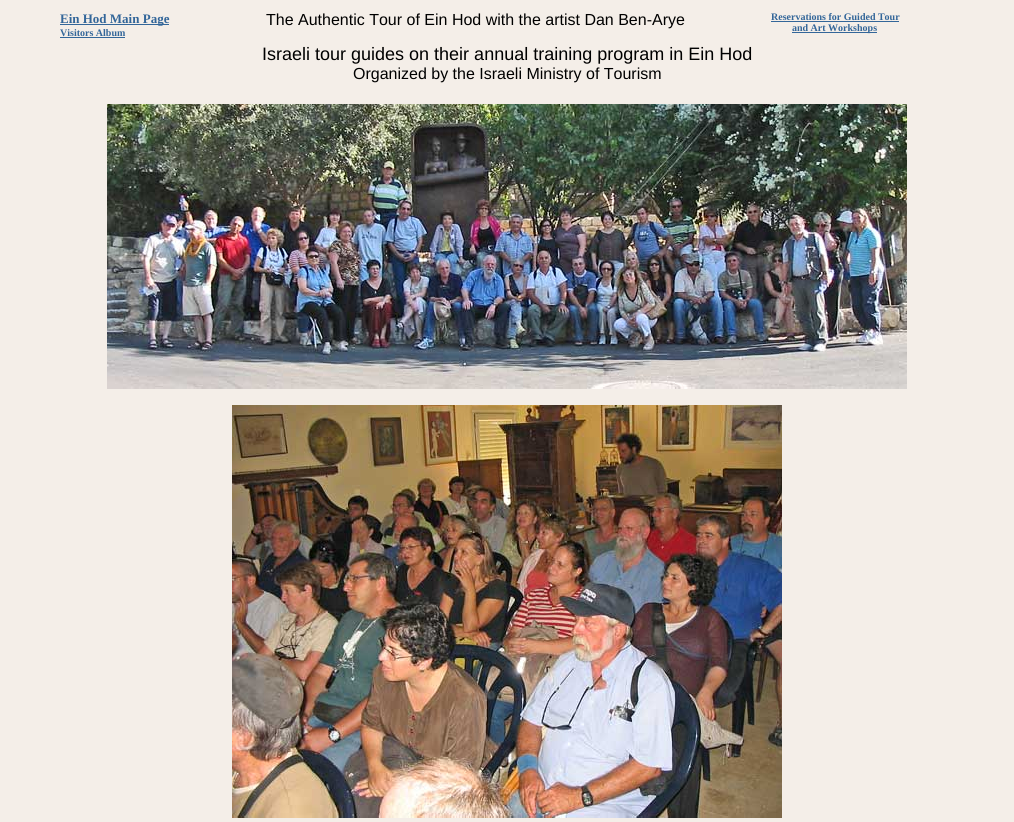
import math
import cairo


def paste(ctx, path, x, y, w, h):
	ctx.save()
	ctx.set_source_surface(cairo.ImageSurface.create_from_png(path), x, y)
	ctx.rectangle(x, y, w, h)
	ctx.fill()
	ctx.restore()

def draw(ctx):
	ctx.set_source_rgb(0.957, 0.933, 0.91)
	ctx.paint()
	ctx.set_source_rgb(0.2, 0.4, 0.6)
	ctx.rectangle(60, 24, 109, 1)
	ctx.fill()
	ctx.select_font_face('Liberation Serif', cairo.FONT_SLANT_NORMAL, cairo.FONT_WEIGHT_BOLD)
	ctx.set_font_size(13)
	ctx.move_to(60, 23)
	ctx.show_text('Ein Hod Main Page')
	ctx.set_font_size(10)
	ctx.move_to(60, 36)
	ctx.show_text('Visitors Album')
	ctx.rectangle(60, 37, 65, 1)
	ctx.fill()
	ctx.select_font_face('Liberation Sans')
	ctx.set_font_size(16)
	ctx.set_source_rgb(0, 0, 0)
	ctx.move_to(266, 25)
	ctx.show_text('The Authentic Tour of Ein Hod with the artist Dan Ben-Arye')
	ctx.select_font_face('Liberation Serif', cairo.FONT_SLANT_NORMAL, cairo.FONT_WEIGHT_BOLD)
	ctx.set_font_size(10)
	ctx.set_source_rgb(0.2, 0.4, 0.6)
	ctx.move_to(771, 20)
	ctx.show_text('Reservations for Guided Tour')
	ctx.rectangle(771, 21, 128, 1)
	ctx.fill()
	ctx.rectangle(792, 32, 85, 1)
	ctx.fill()
	ctx.move_to(792, 31)
	ctx.show_text('and Art Workshops')
	ctx.select_font_face('Liberation Sans')
	ctx.set_font_size(18)
	ctx.set_source_rgb(0, 0, 0)
	ctx.move_to(262, 60)
	ctx.show_text('Israeli tour guides on their annual training program in Ein Hod')
	ctx.set_font_size(16)
	ctx.move_to(353, 79)
	ctx.show_text('Organized by the Israeli Ministry of Tourism')
	paste(ctx, 'media/1.png', 107, 104, 800, 285)
	paste(ctx, 'media/2.png', 232, 405, 550, 413)


surface = cairo.ImageSurface(cairo.FORMAT_RGB24, 1014, 822)
ctx = cairo.Context(surface)
options = cairo.FontOptions()
options.set_hint_metrics(cairo.HINT_METRICS_OFF)
options.set_hint_style(cairo.HINT_STYLE_NONE)
ctx.set_font_options(options)
ctx.set_miter_limit(4)
draw(ctx)
surface.write_to_png('image.png')
